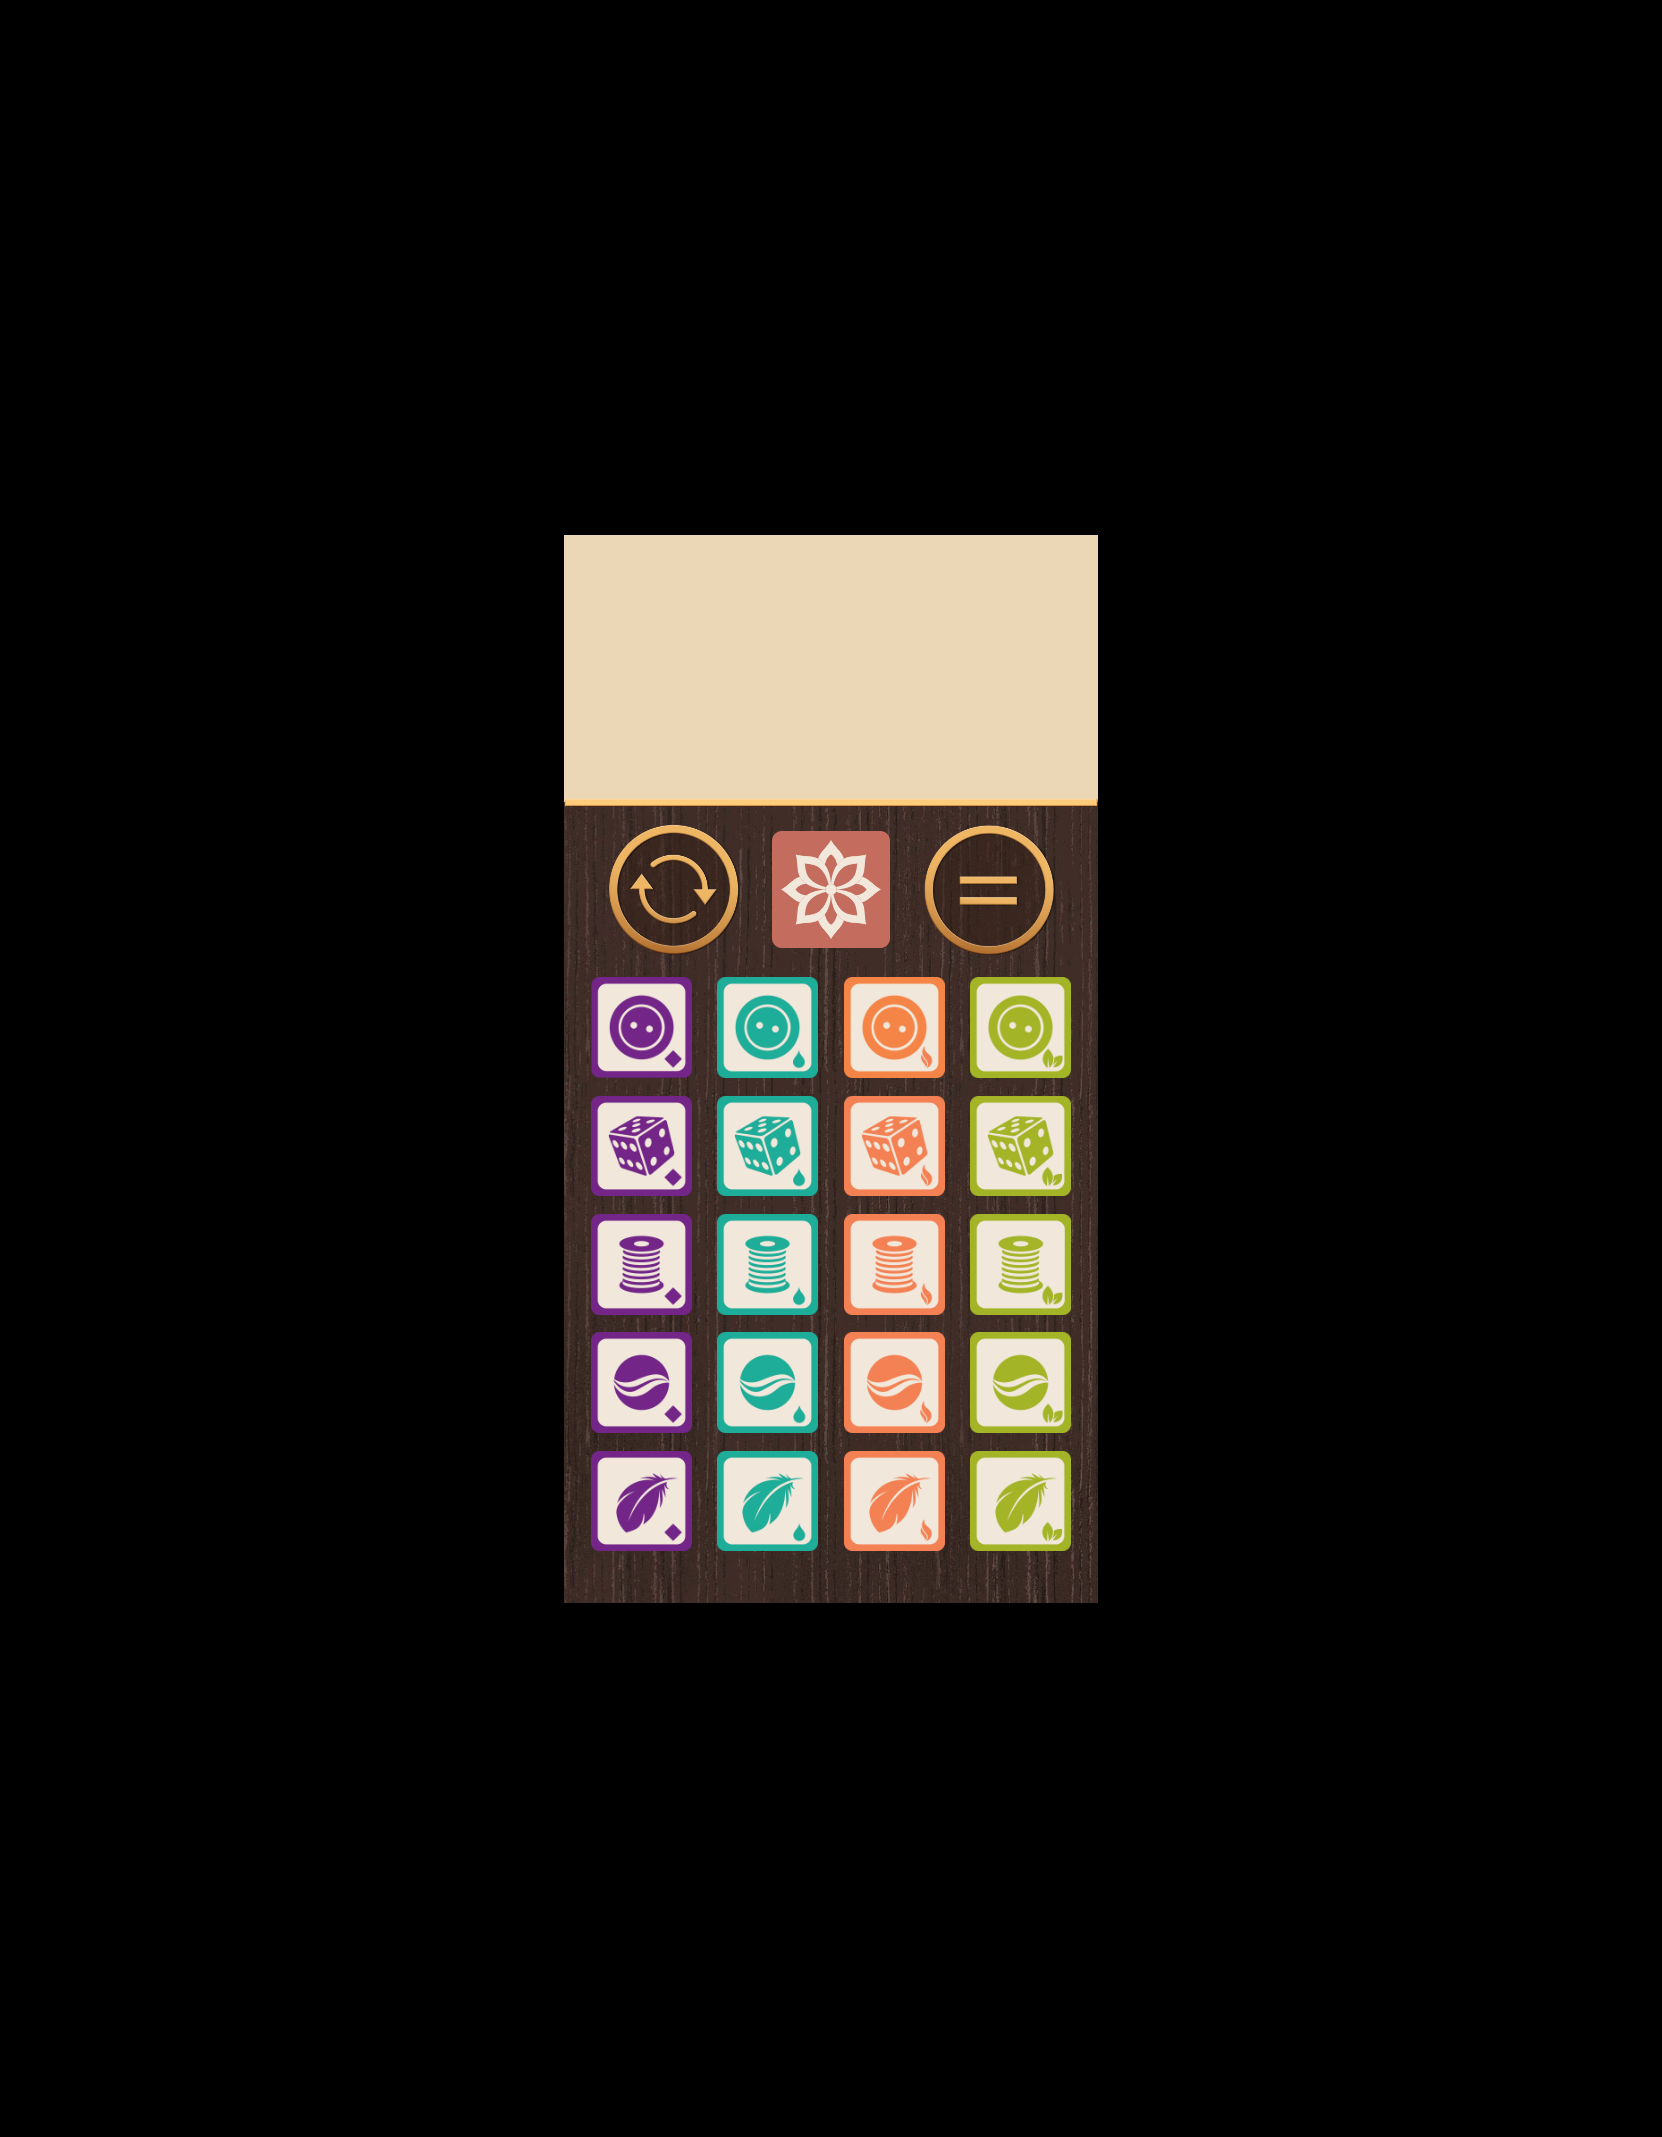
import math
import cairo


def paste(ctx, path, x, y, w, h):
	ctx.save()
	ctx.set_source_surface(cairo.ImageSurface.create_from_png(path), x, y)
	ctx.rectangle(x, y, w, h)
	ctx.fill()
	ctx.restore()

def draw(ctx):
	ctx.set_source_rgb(0, 0, 0)
	ctx.paint()
	ctx.set_source_rgb(0.918, 0.843, 0.714)
	ctx.rectangle(564, 535, 534, 267)
	ctx.fill()
	paste(ctx, 'media/1.png', 564, 802, 534, 801)
	paste(ctx, 'media/2.png', 564, 798, 534, 9)
	paste(ctx, 'media/3.png', 609, 824, 131, 131)
	paste(ctx, 'media/4.png', 772, 831, 118, 117)
	paste(ctx, 'media/5.png', 924, 825, 131, 131)
	paste(ctx, 'media/6.png', 591, 977, 101, 101)
	paste(ctx, 'media/7.png', 717, 977, 101, 101)
	paste(ctx, 'media/8.png', 844, 977, 101, 101)
	paste(ctx, 'media/9.png', 970, 977, 101, 101)
	paste(ctx, 'media/10.png', 591, 1096, 101, 100)
	paste(ctx, 'media/11.png', 717, 1096, 101, 100)
	paste(ctx, 'media/12.png', 844, 1096, 101, 100)
	paste(ctx, 'media/13.png', 970, 1096, 101, 100)
	paste(ctx, 'media/14.png', 591, 1214, 101, 101)
	paste(ctx, 'media/15.png', 717, 1214, 101, 101)
	paste(ctx, 'media/16.png', 844, 1214, 101, 101)
	paste(ctx, 'media/17.png', 970, 1214, 101, 101)
	paste(ctx, 'media/18.png', 591, 1332, 101, 101)
	paste(ctx, 'media/19.png', 717, 1332, 101, 101)
	paste(ctx, 'media/20.png', 844, 1332, 101, 101)
	paste(ctx, 'media/21.png', 970, 1332, 101, 101)
	paste(ctx, 'media/22.png', 591, 1451, 101, 100)
	paste(ctx, 'media/23.png', 717, 1451, 101, 100)
	paste(ctx, 'media/24.png', 844, 1451, 101, 100)
	paste(ctx, 'media/25.png', 970, 1451, 101, 100)


surface = cairo.ImageSurface(cairo.FORMAT_RGB24, 1662, 2137)
ctx = cairo.Context(surface)
options = cairo.FontOptions()
options.set_hint_metrics(cairo.HINT_METRICS_OFF)
options.set_hint_style(cairo.HINT_STYLE_NONE)
ctx.set_font_options(options)
ctx.set_miter_limit(4)
draw(ctx)
surface.write_to_png('image.png')
